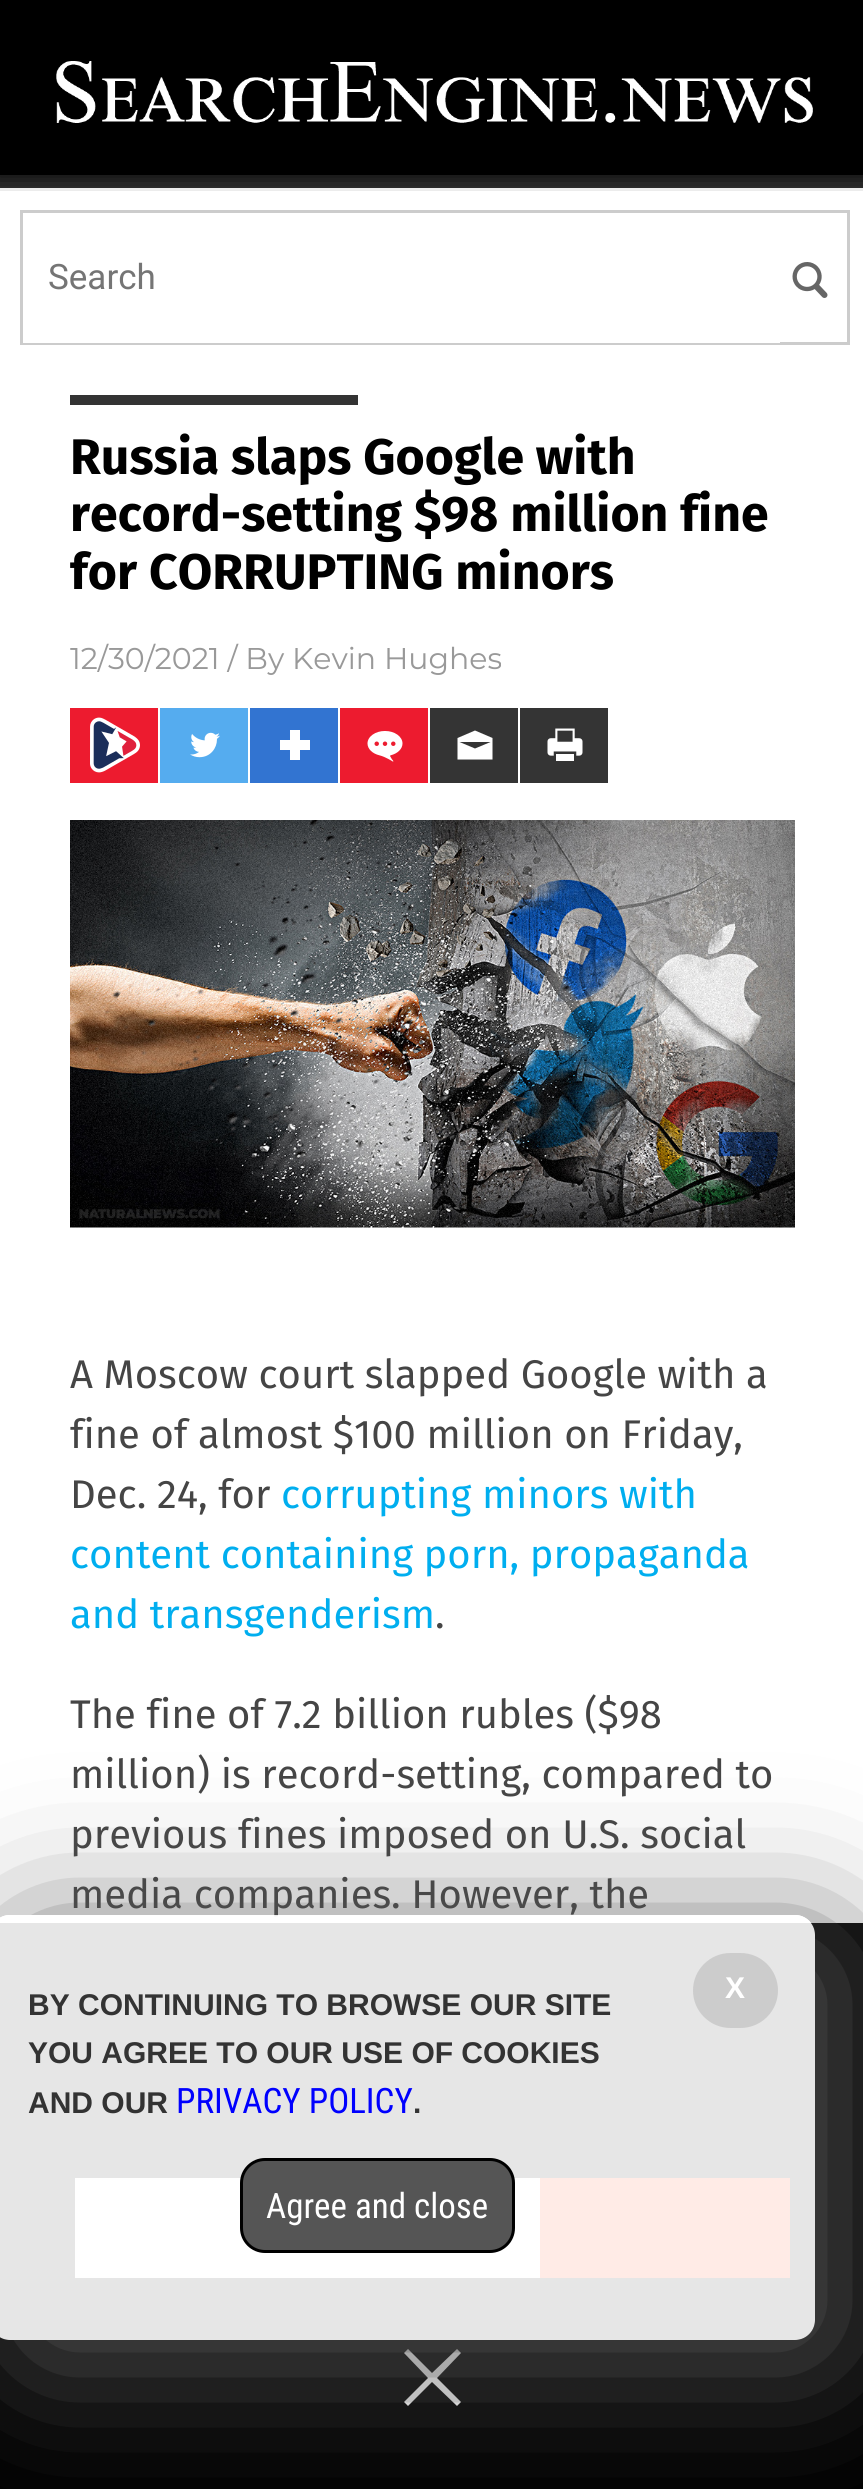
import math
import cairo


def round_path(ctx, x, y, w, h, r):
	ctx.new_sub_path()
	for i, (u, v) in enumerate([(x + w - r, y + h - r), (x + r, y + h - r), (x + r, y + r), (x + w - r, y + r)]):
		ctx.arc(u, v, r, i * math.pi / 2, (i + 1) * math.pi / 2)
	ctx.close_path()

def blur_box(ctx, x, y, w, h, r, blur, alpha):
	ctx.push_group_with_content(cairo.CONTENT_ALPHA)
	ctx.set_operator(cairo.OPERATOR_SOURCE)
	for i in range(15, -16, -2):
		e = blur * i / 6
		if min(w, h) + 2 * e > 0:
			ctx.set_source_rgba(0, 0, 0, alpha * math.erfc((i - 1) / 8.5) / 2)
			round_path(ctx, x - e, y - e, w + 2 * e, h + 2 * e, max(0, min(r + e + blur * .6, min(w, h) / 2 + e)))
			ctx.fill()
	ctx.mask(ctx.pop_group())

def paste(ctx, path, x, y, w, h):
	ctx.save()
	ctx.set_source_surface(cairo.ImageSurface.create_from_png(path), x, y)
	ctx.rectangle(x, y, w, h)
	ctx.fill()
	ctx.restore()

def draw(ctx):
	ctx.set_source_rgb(0.204, 0.204, 0.204)
	ctx.paint()
	ctx.set_source_rgb(0, 0, 0)
	blur_box(ctx, -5, -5, 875, 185, 0, 12.5, 0.75)
	ctx.set_source_rgb(0, 0, 0)
	ctx.rectangle(0, 0, 863, 175)
	ctx.fill()
	paste(ctx, 'media/1.png', 56, 61, 757, 62)
	ctx.set_source_rgb(1, 1, 1)
	ctx.rectangle(0, 191, 863, 1732)
	ctx.fill()
	ctx.set_source_rgb(0.925, 0.925, 0.925)
	ctx.rectangle(0, 188, 863, 3)
	ctx.fill()
	ctx.rectangle(21.5, 211.5, 827, 132)
	ctx.set_source_rgb(0.8, 0.8, 0.8)
	ctx.set_line_width(3)
	ctx.stroke()
	ctx.set_source_rgb(1, 1, 1)
	ctx.rectangle(23, 342, 757, 1)
	ctx.fill()
	ctx.select_font_face('Roboto')
	ctx.set_font_size(35)
	ctx.set_source_rgb(0.459, 0.459, 0.459)
	ctx.move_to(48, 289)
	ctx.show_text('Search')
	paste(ctx, 'media/2.png', 792, 262, 36, 36)
	ctx.set_source_rgb(0.2, 0.2, 0.2)
	ctx.rectangle(70, 395, 288, 10)
	ctx.fill()
	ctx.select_font_face('Fira Sans', cairo.FONT_SLANT_NORMAL, cairo.FONT_WEIGHT_BOLD)
	ctx.set_font_size(50)
	ctx.set_source_rgb(0, 0, 0)
	for x, y, s in [
		(70, 474, 'Russia slaps Google with'),
		(70, 531, 'record-setting $98 million fine'),
		(70, 589, 'for CORRUPTING minors'),
	]:
		ctx.move_to(x, y)
		ctx.show_text(s)
	ctx.select_font_face('Montserrat')
	ctx.set_font_size(30)
	ctx.set_source_rgb(0.6, 0.6, 0.6)
	ctx.move_to(70, 669)
	ctx.show_text('12/30/2021 / By Kevin Hughes')
	ctx.set_source_rgb(0.929, 0.106, 0.184)
	ctx.rectangle(70, 708, 88, 75)
	ctx.fill()
	paste(ctx, 'media/3.png', 90, 717, 50, 56)
	ctx.set_source_rgb(0.333, 0.675, 0.937)
	ctx.rectangle(160, 708, 88, 75)
	ctx.fill()
	paste(ctx, 'media/4.png', 190, 732, 30, 26)
	ctx.set_source_rgb(0.196, 0.455, 0.82)
	ctx.rectangle(250, 708, 88, 75)
	ctx.fill()
	paste(ctx, 'media/5.png', 280, 730, 30, 30)
	ctx.set_source_rgb(0.929, 0.106, 0.184)
	ctx.rectangle(340, 708, 88, 75)
	ctx.fill()
	paste(ctx, 'media/6.png', 367, 731, 36, 31)
	ctx.set_source_rgb(0.204, 0.204, 0.204)
	ctx.rectangle(430, 708, 88, 75)
	ctx.fill()
	ctx.set_source_rgb(1, 1, 1)
	ctx.new_path()
	ctx.move_to(475, 730.5)
	ctx.line_to(457.5, 738)
	ctx.line_to(457.5, 759.5)
	ctx.line_to(492.5, 759.5)
	ctx.line_to(492.5, 738)
	ctx.close_path()
	ctx.move_to(475, 748.5)
	ctx.line_to(459.5, 742)
	ctx.line_to(490.5, 742)
	ctx.close_path()
	ctx.fill()
	ctx.set_source_rgb(0.204, 0.204, 0.204)
	ctx.rectangle(520, 708, 88, 75)
	ctx.fill()
	paste(ctx, 'media/7.png', 547, 728, 36, 33)
	paste(ctx, 'media/8.png', 70, 820, 725, 408)
	ctx.select_font_face('Fira Sans')
	ctx.set_font_size(40)
	ctx.set_source_rgb(0.271, 0.271, 0.271)
	for x, y, s in [
		(70, 1388, 'A Moscow court slapped Google with a'),
		(70, 1448, 'fine of almost $100 million on Friday,'),
		(70, 1508, 'Dec. 24, for'),
	]:
		ctx.move_to(x, y)
		ctx.show_text(s)
	ctx.set_source_rgb(0, 0.682, 0.937)
	for x, y, s in [
		(281, 1508, 'corrupting minors with'),
		(70, 1568, 'content containing porn, propaganda'),
		(70, 1628, 'and transgenderism'),
	]:
		ctx.move_to(x, y)
		ctx.show_text(s)
	ctx.set_source_rgb(0.271, 0.271, 0.271)
	for x, y, s in [
		(435, 1628, '.'),
		(70, 1728, 'The fine of 7.2 billion rubles ($98'),
		(70, 1788, 'million) is record-setting, compared to'),
		(70, 1848, 'previous fines imposed on U.S. social'),
		(70, 1908, 'media companies. However, the'),
	]:
		ctx.move_to(x, y)
		ctx.show_text(s)
	ctx.set_source_rgb(0, 0, 0)
	ctx.rectangle(0, 1923, 863, 566)
	ctx.fill()
	ctx.set_source_rgb(1, 1, 1)
	ctx.rectangle(75, 2178, 465, 100)
	ctx.fill()
	ctx.set_source_rgb(1, 0.2, 0)
	ctx.rectangle(540, 2178, 250, 100)
	ctx.fill()
	ctx.set_source_rgb(1, 1, 1)
	ctx.new_path()
	ctx.move_to(461, 2353)
	ctx.line_to(457, 2349)
	ctx.line_to(432, 2373)
	ctx.line_to(408, 2349)
	ctx.line_to(404, 2353)
	ctx.line_to(428, 2378)
	ctx.line_to(404, 2402)
	ctx.line_to(408, 2406)
	ctx.line_to(432, 2382)
	ctx.line_to(457, 2406)
	ctx.line_to(461, 2402)
	ctx.line_to(437, 2378)
	ctx.close_path()
	ctx.fill()
	ctx.save()
	ctx.set_fill_rule(cairo.FILL_RULE_EVEN_ODD)
	ctx.new_path()
	ctx.move_to(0, 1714)
	ctx.line_to(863, 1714)
	ctx.line_to(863, 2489)
	ctx.line_to(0, 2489)
	ctx.close_path()
	ctx.move_to(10, 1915)
	ctx.line_to(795, 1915)
	ctx.curve_to(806, 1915, 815, 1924, 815, 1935)
	ctx.line_to(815, 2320)
	ctx.curve_to(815, 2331, 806, 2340, 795, 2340)
	ctx.line_to(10, 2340)
	ctx.curve_to(-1, 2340, -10, 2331, -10, 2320)
	ctx.line_to(-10, 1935)
	ctx.curve_to(-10, 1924, -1, 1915, 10, 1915)
	ctx.close_path()
	ctx.clip()
	ctx.set_source_rgb(0.333, 0.333, 0.333)
	blur_box(ctx, 15, 1940, 825, 425, 20, 75, 1)
	ctx.restore()
	ctx.set_source_rgba(1, 1, 1, 0.9)
	round_path(ctx, -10, 1915, 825, 425, 20)
	ctx.fill()
	ctx.set_source_rgb(0.8, 0.8, 0.8)
	round_path(ctx, 693, 1953, 85, 75, 37.5)
	ctx.fill()
	ctx.select_font_face('Liberation Sans', cairo.FONT_SLANT_NORMAL, cairo.FONT_WEIGHT_BOLD)
	ctx.set_font_size(30)
	ctx.set_source_rgb(1, 1, 1)
	ctx.move_to(725, 1998)
	ctx.show_text('X')
	ctx.set_source_rgb(0.2, 0.2, 0.2)
	for x, y, s in [
		(28, 2015, 'BY CONTINUING TO BROWSE OUR SITE'),
		(28, 2063, 'YOU AGREE TO OUR USE OF COOKIES'),
		(28, 2113, 'AND OUR'),
	]:
		ctx.move_to(x, y)
		ctx.show_text(s)
	ctx.select_font_face('Roboto Condensed')
	ctx.set_font_size(35)
	ctx.set_source_rgb(0, 0, 1)
	ctx.move_to(176, 2113)
	ctx.show_text('PRIVACY POLICY')
	ctx.select_font_face('Liberation Sans', cairo.FONT_SLANT_NORMAL, cairo.FONT_WEIGHT_BOLD)
	ctx.set_font_size(30)
	ctx.set_source_rgb(0.2, 0.2, 0.2)
	ctx.move_to(413, 2113)
	ctx.show_text('.')
	ctx.set_source_rgb(0.333, 0.333, 0.333)
	round_path(ctx, 241.5, 2159.5, 272, 92, 23.5)
	ctx.fill_preserve()
	ctx.set_source_rgb(0, 0, 0)
	ctx.stroke()
	ctx.select_font_face('Roboto Condensed')
	ctx.set_font_size(35)
	ctx.set_source_rgb(1, 1, 1)
	ctx.move_to(266, 2218)
	ctx.show_text('Agree and close')


surface = cairo.ImageSurface(cairo.FORMAT_RGB24, 863, 2489)
ctx = cairo.Context(surface)
options = cairo.FontOptions()
options.set_hint_metrics(cairo.HINT_METRICS_OFF)
options.set_hint_style(cairo.HINT_STYLE_NONE)
ctx.set_font_options(options)
ctx.set_miter_limit(4)
draw(ctx)
surface.write_to_png('image.png')
